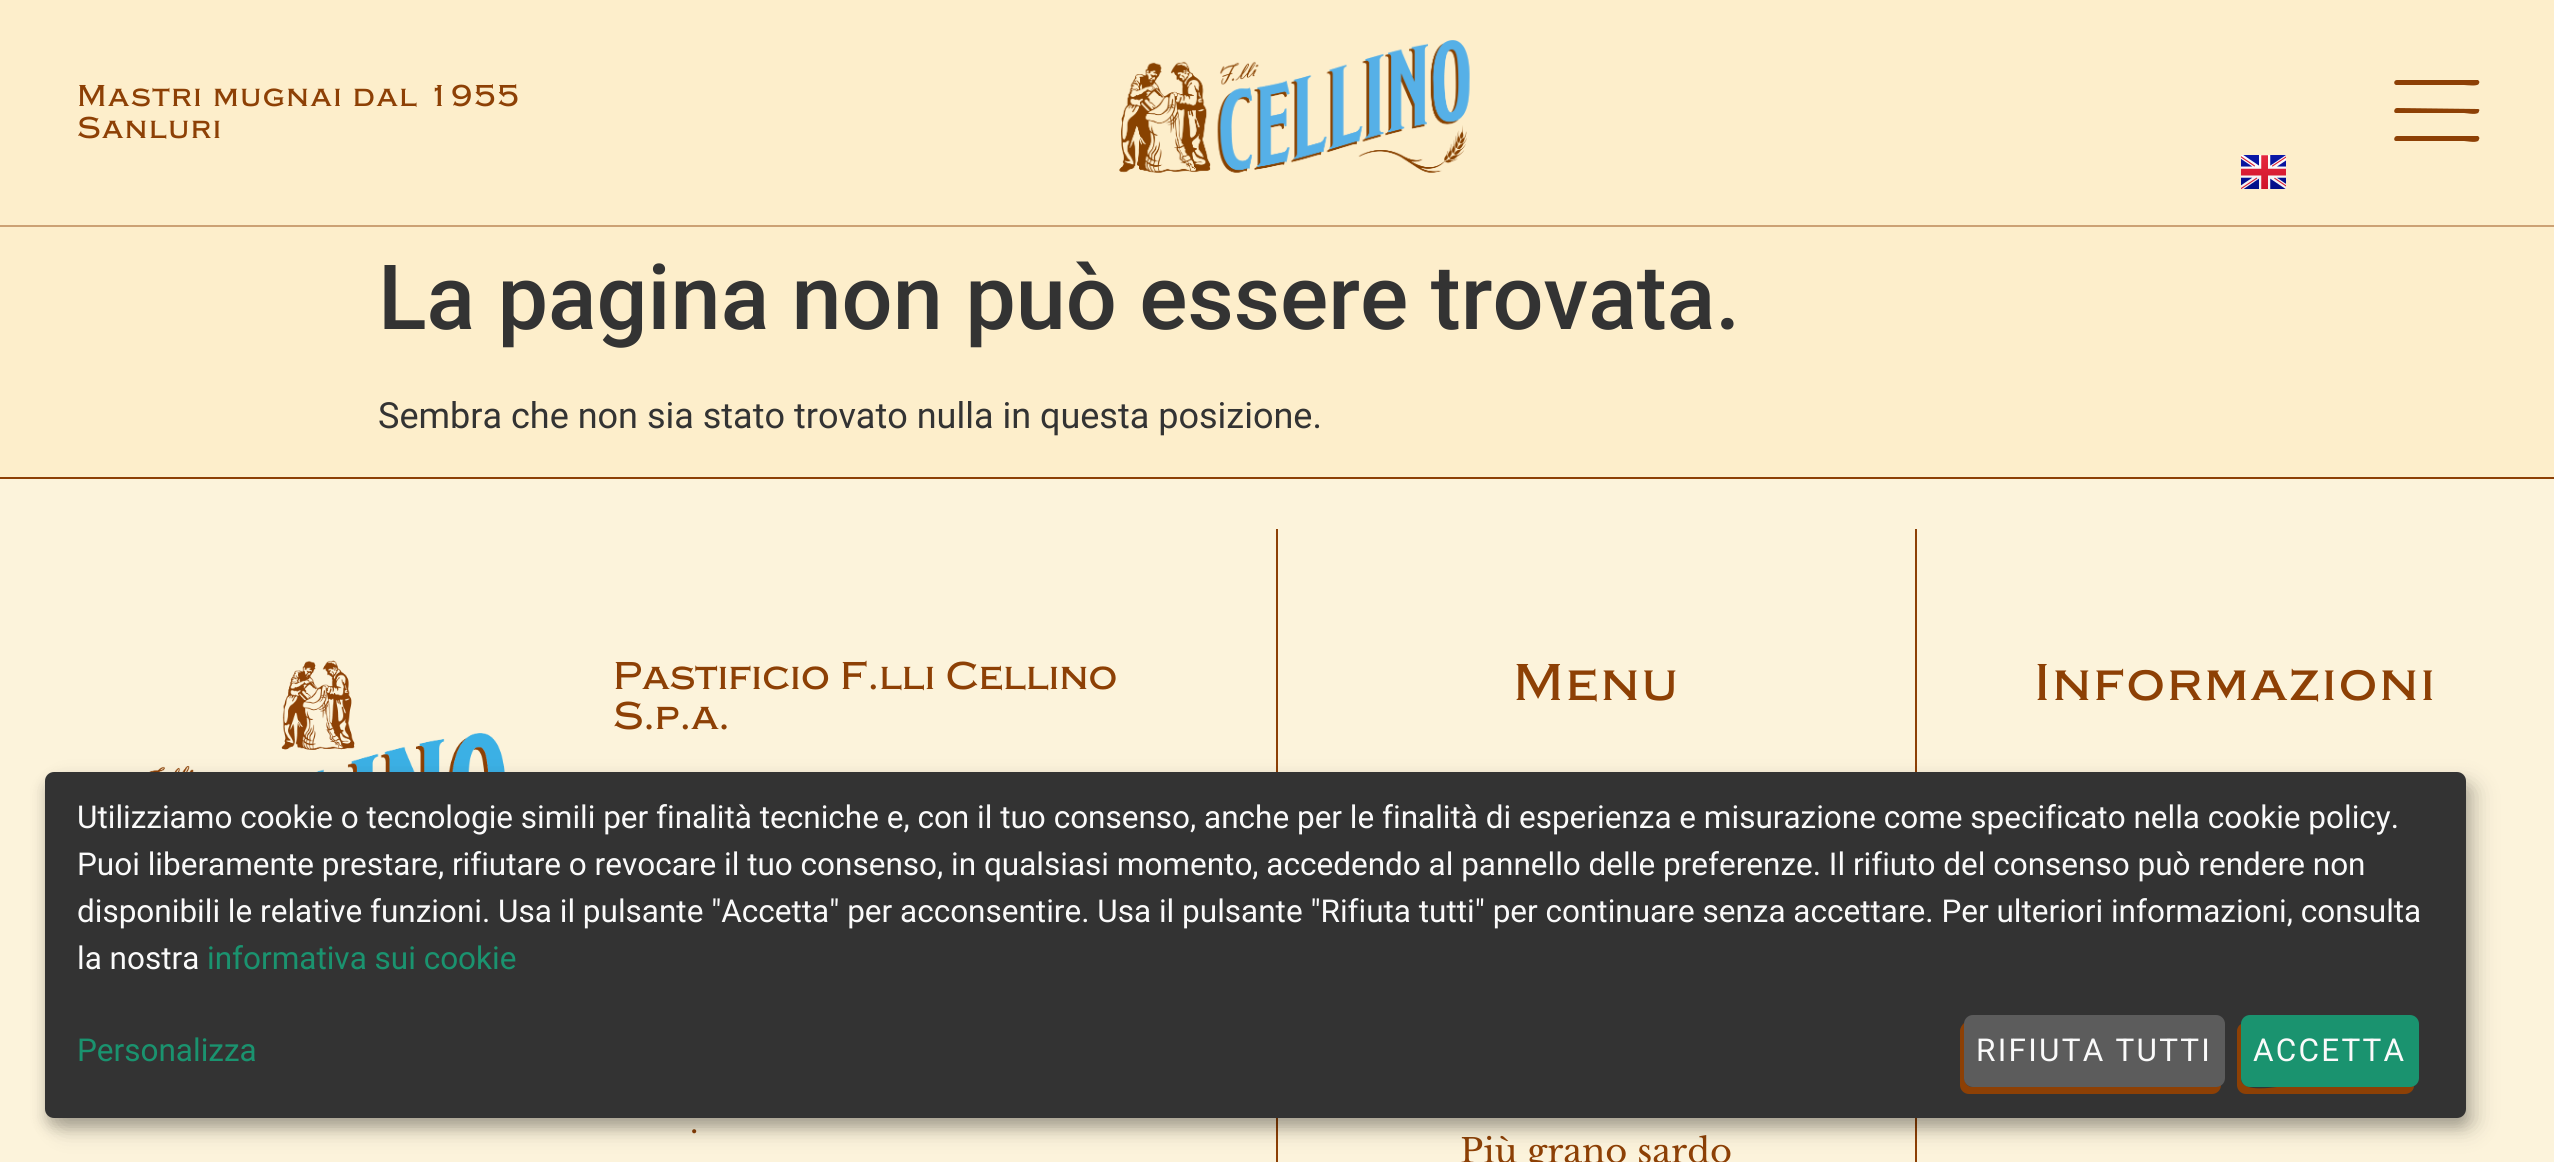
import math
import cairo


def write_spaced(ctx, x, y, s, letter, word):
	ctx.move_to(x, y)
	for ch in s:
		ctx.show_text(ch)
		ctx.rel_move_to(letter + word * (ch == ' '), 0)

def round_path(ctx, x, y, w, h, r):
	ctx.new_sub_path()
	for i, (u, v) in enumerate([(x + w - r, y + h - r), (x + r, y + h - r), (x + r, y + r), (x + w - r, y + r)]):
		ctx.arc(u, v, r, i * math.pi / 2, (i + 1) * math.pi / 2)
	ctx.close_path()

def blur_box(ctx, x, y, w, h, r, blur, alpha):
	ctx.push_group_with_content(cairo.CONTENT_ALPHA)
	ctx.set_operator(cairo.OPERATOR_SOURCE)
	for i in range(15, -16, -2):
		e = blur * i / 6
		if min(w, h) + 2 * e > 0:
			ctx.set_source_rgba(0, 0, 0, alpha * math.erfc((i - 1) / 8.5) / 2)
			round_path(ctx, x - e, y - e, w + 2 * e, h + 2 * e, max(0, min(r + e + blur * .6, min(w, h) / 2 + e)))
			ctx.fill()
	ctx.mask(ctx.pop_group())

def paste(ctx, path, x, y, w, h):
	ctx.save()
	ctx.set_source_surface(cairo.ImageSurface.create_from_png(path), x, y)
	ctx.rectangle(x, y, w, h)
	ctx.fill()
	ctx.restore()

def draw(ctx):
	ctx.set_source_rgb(0.992, 0.933, 0.796)
	ctx.paint()
	ctx.set_source_rgb(0.8, 0.631, 0.455)
	ctx.rectangle(0, 225, 2554, 2)
	ctx.fill()
	ctx.select_font_face('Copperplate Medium')
	ctx.set_font_size(31.5)
	ctx.set_source_rgb(0.553, 0.251, 0.02)
	write_spaced(ctx, 77, 106, 'Mastri mugnai dal 1955', 1.6, 0)
	write_spaced(ctx, 77, 138, 'Sanluri', 1.6, 0)
	paste(ctx, 'media/1.png', 1119, 40, 351, 133)
	ctx.new_path()
	ctx.move_to(2397, 80)
	ctx.curve_to(2394, 80, 2393, 84, 2396, 85)
	ctx.line_to(2464, 85)
	ctx.curve_to(2467, 85, 2479, 87, 2479, 83)
	ctx.curve_to(2480, 82, 2479, 81, 2478, 80)
	ctx.close_path()
	ctx.move_to(2397, 108)
	ctx.curve_to(2394, 108, 2393, 113, 2396, 113)
	ctx.line_to(2464, 113)
	ctx.curve_to(2467, 113, 2479, 116, 2479, 111)
	ctx.curve_to(2480, 110, 2479, 109, 2478, 109)
	ctx.close_path()
	ctx.move_to(2397, 136)
	ctx.curve_to(2394, 136, 2393, 141, 2396, 141)
	ctx.line_to(2464, 141)
	ctx.curve_to(2467, 141, 2479, 144, 2479, 139)
	ctx.curve_to(2480, 138, 2479, 137, 2478, 136)
	ctx.close_path()
	ctx.fill()
	paste(ctx, 'media/2.png', 2241, 155, 45, 34)
	ctx.select_font_face('Roboto Medium')
	ctx.set_font_size(90)
	ctx.set_source_rgb(0.2, 0.2, 0.2)
	ctx.move_to(378, 329)
	ctx.show_text('La pagina non può essere trovata.')
	ctx.select_font_face('Roboto')
	ctx.set_font_size(36)
	ctx.move_to(378, 428)
	ctx.show_text('Sembra che non sia stato trovato nulla in questa posizione.')
	ctx.set_source_rgb(0.988, 0.953, 0.859)
	ctx.rectangle(0, 479, 2554, 683)
	ctx.fill()
	ctx.set_source_rgb(0.553, 0.251, 0.02)
	ctx.rectangle(0, 477, 2554, 2)
	ctx.fill()
	paste(ctx, 'media/3.png', 149, 660, 356, 112)
	ctx.rectangle(1276, 529, 2, 633)
	ctx.fill()
	ctx.select_font_face('Copperplate Medium')
	ctx.set_font_size(40.5)
	ctx.move_to(613, 689)
	ctx.show_text('Pastificio F.lli Cellino')
	ctx.move_to(613, 729)
	ctx.show_text('S.p.a.')
	ctx.select_font_face('Libre Baskerville')
	ctx.set_font_size(31.5)
	ctx.move_to(690, 1133)
	ctx.show_text('.')
	ctx.rectangle(1915, 529, 2, 633)
	ctx.fill()
	ctx.select_font_face('Copperplate Medium')
	ctx.set_font_size(54)
	write_spaced(ctx, 1513, 700, 'Menu', 2.25, 0)
	ctx.select_font_face('Libre Baskerville')
	ctx.set_font_size(33.75)
	ctx.move_to(1460, 1163)
	ctx.show_text('Più grano sardo')
	ctx.select_font_face('Copperplate Medium')
	ctx.set_font_size(54)
	write_spaced(ctx, 2034, 700, 'Informazioni', 2.25, 0)
	ctx.set_source_rgb(0, 0, 0)
	blur_box(ctx, 56, 783, 2421, 347, 9, 11, 0.19)
	blur_box(ctx, 45, 781, 2421, 346, 9, 7, 0.2)
	ctx.set_source_rgb(0.2, 0.2, 0.2)
	round_path(ctx, 45, 772, 2421, 346, 9)
	ctx.fill()
	ctx.select_font_face('Roboto')
	ctx.set_font_size(31.5)
	ctx.set_source_rgb(0.98, 0.98, 0.98)
	for x, y, s in [
		(77, 828, 'Utilizziamo cookie o tecnologie simili per finalità tecniche e, con il tuo consenso, anche per le finalità di esperienza e misurazione come specificato nella cookie policy.'),
		(77, 875, 'Puoi liberamente prestare, rifiutare o revocare il tuo consenso, in qualsiasi momento, accedendo al pannello delle preferenze. Il rifiuto del consenso può rendere non'),
		(77, 922, 'disponibili le relative funzioni. Usa il pulsante "Accetta" per acconsentire. Usa il pulsante "Rifiuta tutti" per continuare senza accettare. Per ulteriori informazioni, consulta'),
		(77, 969, 'la nostra'),
	]:
		ctx.move_to(x, y)
		ctx.show_text(s)
	ctx.set_source_rgb(0.102, 0.576, 0.435)
	ctx.move_to(207, 969)
	ctx.show_text('informativa sui cookie')
	ctx.move_to(77, 1061)
	ctx.show_text('Personalizza')
	ctx.set_source_rgb(0.553, 0.251, 0.02)
	ctx.new_path()
	ctx.move_to(1964, 1023)
	ctx.curve_to(1962, 1025, 1960, 1028, 1960, 1031)
	ctx.line_to(1960, 1085)
	ctx.curve_to(1960, 1090, 1964, 1094, 1969, 1094)
	ctx.line_to(2212, 1094)
	ctx.curve_to(2217, 1094, 2221, 1090, 2221, 1085)
	ctx.line_to(2216, 1087)
	ctx.line_to(1973, 1087)
	ctx.curve_to(1963, 1087, 1964, 1076, 1964, 1069)
	ctx.close_path()
	ctx.fill()
	ctx.set_source_rgb(0.361, 0.361, 0.361)
	round_path(ctx, 1964, 1015, 261, 72, 9)
	ctx.fill()
	ctx.set_source_rgb(0.98, 0.98, 0.98)
	write_spaced(ctx, 1976, 1061, 'RIFIUTA TUTTI', 2.25, 0)
	ctx.set_source_rgb(0.553, 0.251, 0.02)
	ctx.new_path()
	ctx.move_to(2241, 1024)
	ctx.curve_to(2239, 1025, 2237, 1028, 2237, 1031)
	ctx.line_to(2237, 1085)
	ctx.curve_to(2237, 1090, 2241, 1094, 2246, 1094)
	ctx.line_to(2405, 1094)
	ctx.curve_to(2410, 1094, 2414, 1090, 2414, 1086)
	ctx.line_to(2410, 1087)
	ctx.line_to(2277, 1087)
	ctx.curve_to(2274, 1087, 2244, 1093, 2241, 1080)
	ctx.close_path()
	ctx.fill()
	ctx.set_source_rgb(0.102, 0.576, 0.435)
	round_path(ctx, 2241, 1015, 178, 72, 9)
	ctx.fill()
	ctx.set_source_rgb(0.98, 0.98, 0.98)
	write_spaced(ctx, 2253, 1061, 'ACCETTA', 2.25, 0)


surface = cairo.ImageSurface(cairo.FORMAT_RGB24, 2554, 1162)
ctx = cairo.Context(surface)
options = cairo.FontOptions()
options.set_hint_metrics(cairo.HINT_METRICS_OFF)
options.set_hint_style(cairo.HINT_STYLE_NONE)
ctx.set_font_options(options)
ctx.set_miter_limit(4)
draw(ctx)
surface.write_to_png('image.png')
